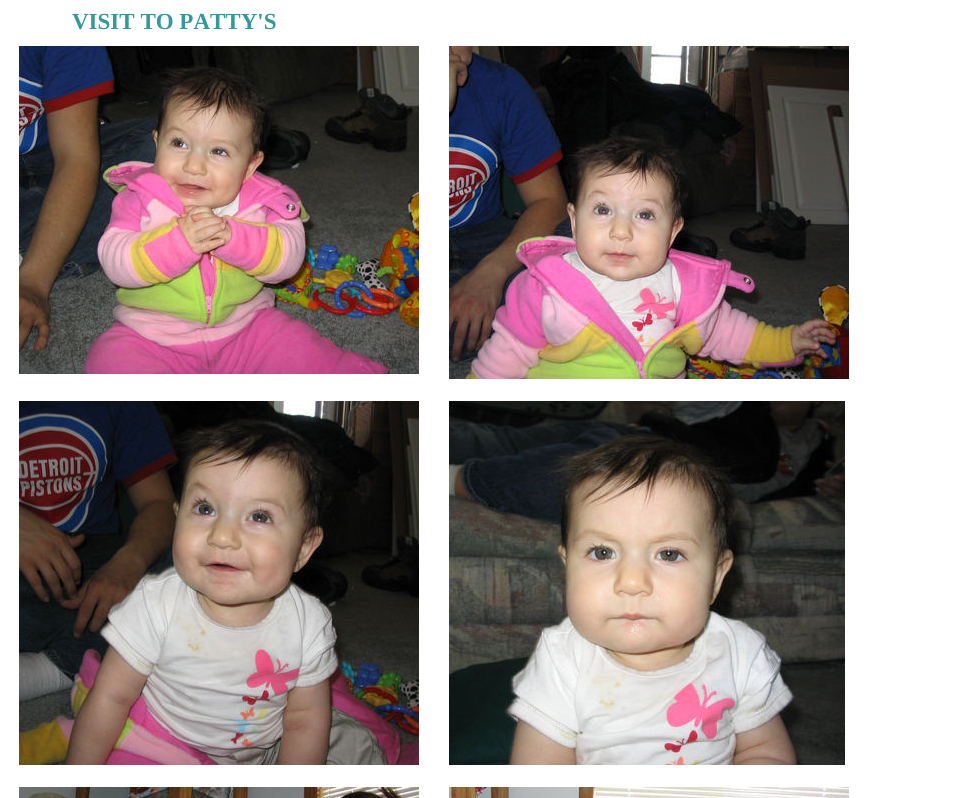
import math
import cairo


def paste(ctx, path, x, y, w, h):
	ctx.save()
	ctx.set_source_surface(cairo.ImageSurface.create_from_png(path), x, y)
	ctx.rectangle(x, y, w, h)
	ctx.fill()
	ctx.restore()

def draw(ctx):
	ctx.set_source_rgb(1, 1, 1)
	ctx.paint()
	ctx.select_font_face('Liberation Serif', cairo.FONT_SLANT_NORMAL, cairo.FONT_WEIGHT_BOLD)
	ctx.set_font_size(23)
	ctx.set_source_rgb(0.2, 0.6, 0.6)
	ctx.move_to(72, 29)
	ctx.show_text('VISIT TO PATTY\'S')
	paste(ctx, 'media/1.png', 19, 46, 400, 328)
	paste(ctx, 'media/2.png', 449, 46, 400, 333)
	paste(ctx, 'media/3.png', 19, 401, 400, 364)
	paste(ctx, 'media/4.png', 449, 401, 396, 364)
	paste(ctx, 'media/5.png', 19, 787, 400, 11)
	paste(ctx, 'media/6.png', 449, 787, 400, 11)


surface = cairo.ImageSurface(cairo.FORMAT_RGB24, 978, 798)
ctx = cairo.Context(surface)
options = cairo.FontOptions()
options.set_hint_metrics(cairo.HINT_METRICS_OFF)
options.set_hint_style(cairo.HINT_STYLE_NONE)
ctx.set_font_options(options)
ctx.set_miter_limit(4)
draw(ctx)
surface.write_to_png('image.png')
